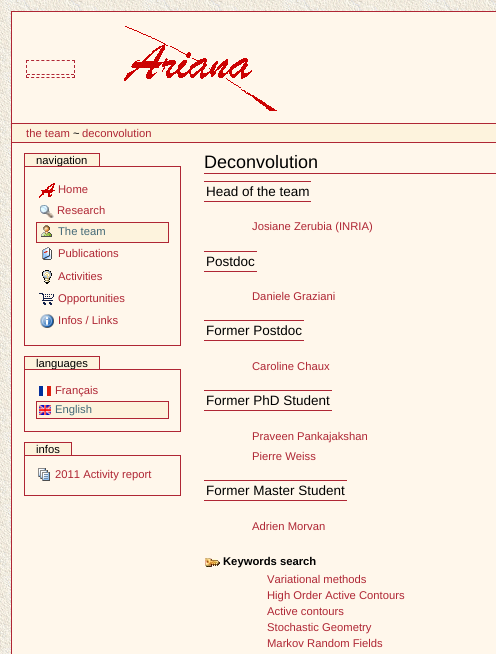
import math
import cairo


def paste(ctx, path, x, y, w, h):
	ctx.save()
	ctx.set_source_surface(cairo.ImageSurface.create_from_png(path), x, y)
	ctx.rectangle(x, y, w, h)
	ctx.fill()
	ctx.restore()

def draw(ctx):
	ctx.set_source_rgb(1, 1, 1)
	ctx.paint()
	paste(ctx, 'media/1.png', 0, 0, 496, 654)
	ctx.set_source_rgb(1, 0.965, 0.918)
	ctx.rectangle(11.5, 11.5, 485, 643)
	ctx.fill_preserve()
	ctx.set_source_rgb(0.686, 0.149, 0.204)
	ctx.set_line_width(1)
	ctx.stroke()
	ctx.new_path()
	ctx.move_to(26, 60.5)
	ctx.line_to(75, 60.5)
	ctx.set_dash([3, 2.11])
	ctx.stroke()
	ctx.new_path()
	ctx.move_to(74.5, 60)
	ctx.line_to(74.5, 78)
	ctx.set_dash([3, 2])
	ctx.stroke()
	ctx.new_path()
	ctx.move_to(26, 77.5)
	ctx.line_to(75, 77.5)
	ctx.set_dash([3, 2.11])
	ctx.stroke()
	ctx.new_path()
	ctx.move_to(26.5, 60)
	ctx.line_to(26.5, 78)
	ctx.set_dash([3, 2])
	ctx.stroke()
	ctx.new_path()
	ctx.move_to(27, 74.5)
	ctx.line_to(74, 74.5)
	ctx.set_dash([3, 1.89])
	ctx.stroke()
	paste(ctx, 'media/2.png', 124, 26, 153, 85)
	ctx.set_source_rgb(0.992, 0.953, 0.867)
	ctx.rectangle(12, 124, 484, 18)
	ctx.fill()
	ctx.set_source_rgb(0.686, 0.149, 0.204)
	ctx.rectangle(12, 123, 484, 1)
	ctx.rectangle(12, 142, 484, 1)
	ctx.fill()
	ctx.select_font_face('Liberation Sans')
	ctx.set_font_size(11.25)
	ctx.move_to(26, 137)
	ctx.show_text('the team')
	ctx.set_source_rgb(0, 0, 0)
	ctx.move_to(73, 137)
	ctx.show_text('~')
	ctx.set_source_rgb(0.686, 0.149, 0.204)
	ctx.move_to(82, 137)
	ctx.show_text('deconvolution')
	ctx.set_source_rgb(0.992, 0.953, 0.867)
	ctx.rectangle(24.5, 153.5, 75, 13)
	ctx.fill_preserve()
	ctx.set_source_rgb(0.686, 0.149, 0.204)
	ctx.set_dash([])
	ctx.stroke()
	ctx.set_source_rgb(0, 0, 0)
	ctx.move_to(36, 164)
	ctx.show_text('navigation')
	ctx.rectangle(24.5, 166.5, 156, 179)
	ctx.set_source_rgb(0.686, 0.149, 0.204)
	ctx.stroke()
	paste(ctx, 'media/3.png', 39, 183, 16, 15)
	ctx.move_to(58, 193)
	ctx.show_text('Home')
	paste(ctx, 'media/4.png', 40, 205, 14, 13)
	ctx.move_to(57, 214)
	ctx.show_text('Research')
	ctx.set_source_rgb(0.992, 0.953, 0.867)
	ctx.rectangle(36.5, 222.5, 132, 20)
	ctx.fill_preserve()
	ctx.set_source_rgb(0.686, 0.149, 0.204)
	ctx.stroke()
	paste(ctx, 'media/5.png', 41, 225, 11, 12)
	ctx.set_source_rgb(0.263, 0.412, 0.463)
	ctx.move_to(58, 235)
	ctx.show_text('The team')
	paste(ctx, 'media/6.png', 42, 247, 10, 13)
	ctx.set_source_rgb(0.686, 0.149, 0.204)
	ctx.move_to(58, 257)
	ctx.show_text('Publications')
	paste(ctx, 'media/7.png', 42, 270, 10, 14)
	ctx.move_to(58, 280)
	ctx.show_text('Activities')
	paste(ctx, 'media/8.png', 39, 293, 15, 12)
	ctx.move_to(58, 302)
	ctx.show_text('Opportunities')
	paste(ctx, 'media/9.png', 40, 314, 14, 14)
	ctx.move_to(58, 324)
	ctx.show_text('Infos / Links')
	ctx.set_source_rgb(0.992, 0.953, 0.867)
	ctx.rectangle(24.5, 356.5, 75, 13)
	ctx.fill_preserve()
	ctx.set_source_rgb(0.686, 0.149, 0.204)
	ctx.stroke()
	ctx.set_source_rgb(0, 0, 0)
	ctx.move_to(36, 367)
	ctx.show_text('languages')
	ctx.rectangle(24.5, 369.5, 156, 62)
	ctx.set_source_rgb(0.686, 0.149, 0.204)
	ctx.stroke()
	paste(ctx, 'media/10.png', 39, 386, 12, 10)
	ctx.move_to(55, 394)
	ctx.show_text('Français')
	ctx.set_source_rgb(0.992, 0.953, 0.867)
	ctx.rectangle(36.5, 401.5, 132, 17)
	ctx.fill_preserve()
	ctx.set_source_rgb(0.686, 0.149, 0.204)
	ctx.stroke()
	paste(ctx, 'media/11.png', 39, 405, 12, 10)
	ctx.set_source_rgb(0.263, 0.412, 0.463)
	ctx.move_to(55, 413)
	ctx.show_text('English')
	ctx.set_source_rgb(0.992, 0.953, 0.867)
	ctx.rectangle(24.5, 442.5, 47, 13)
	ctx.fill_preserve()
	ctx.set_source_rgb(0.686, 0.149, 0.204)
	ctx.stroke()
	ctx.set_source_rgb(0, 0, 0)
	ctx.move_to(36, 453)
	ctx.show_text('infos')
	ctx.rectangle(24.5, 455.5, 156, 40)
	ctx.set_source_rgb(0.686, 0.149, 0.204)
	ctx.stroke()
	paste(ctx, 'media/12.png', 38, 468, 12, 13)
	ctx.move_to(55, 478)
	ctx.show_text('2011 Activity report')
	ctx.rectangle(204, 173, 292, 1)
	ctx.fill()
	ctx.set_font_size(18)
	ctx.set_source_rgb(0, 0, 0)
	ctx.move_to(204, 168)
	ctx.show_text('Deconvolution')
	ctx.set_source_rgb(0.686, 0.149, 0.204)
	ctx.rectangle(204, 181, 107, 1)
	ctx.fill()
	ctx.rectangle(204, 201, 107, 1)
	ctx.fill()
	ctx.set_font_size(13.5)
	ctx.set_source_rgb(0, 0, 0)
	ctx.move_to(206, 196)
	ctx.show_text('Head of the team')
	ctx.set_font_size(11.25)
	ctx.set_source_rgb(0.686, 0.149, 0.204)
	ctx.move_to(252, 230)
	ctx.show_text('Josiane Zerubia (INRIA)')
	ctx.rectangle(204, 251, 53, 1)
	ctx.fill()
	ctx.rectangle(204, 271, 53, 1)
	ctx.fill()
	ctx.set_font_size(13.5)
	ctx.set_source_rgb(0, 0, 0)
	ctx.move_to(206, 266)
	ctx.show_text('Postdoc')
	ctx.set_font_size(11.25)
	ctx.set_source_rgb(0.686, 0.149, 0.204)
	ctx.move_to(252, 300)
	ctx.show_text('Daniele Graziani')
	ctx.rectangle(204, 320, 100, 1)
	ctx.fill()
	ctx.rectangle(204, 340, 100, 1)
	ctx.fill()
	ctx.set_font_size(13.5)
	ctx.set_source_rgb(0, 0, 0)
	ctx.move_to(206, 335)
	ctx.show_text('Former Postdoc')
	ctx.set_font_size(11.25)
	ctx.set_source_rgb(0.686, 0.149, 0.204)
	ctx.move_to(252, 370)
	ctx.show_text('Caroline Chaux')
	ctx.rectangle(204, 390, 128, 1)
	ctx.fill()
	ctx.rectangle(204, 410, 128, 1)
	ctx.fill()
	ctx.set_font_size(13.5)
	ctx.set_source_rgb(0, 0, 0)
	ctx.move_to(206, 405)
	ctx.show_text('Former PhD Student')
	ctx.set_font_size(11.25)
	ctx.set_source_rgb(0.686, 0.149, 0.204)
	ctx.move_to(252, 440)
	ctx.show_text('Praveen Pankajakshan')
	ctx.move_to(252, 460)
	ctx.show_text('Pierre Weiss')
	ctx.rectangle(204, 480, 143, 1)
	ctx.fill()
	ctx.rectangle(204, 500, 143, 1)
	ctx.fill()
	ctx.set_font_size(13.5)
	ctx.set_source_rgb(0, 0, 0)
	ctx.move_to(206, 495)
	ctx.show_text('Former Master Student')
	ctx.set_font_size(11.25)
	ctx.set_source_rgb(0.686, 0.149, 0.204)
	ctx.move_to(252, 530)
	ctx.show_text('Adrien Morvan')
	paste(ctx, 'media/13.png', 205, 558, 15, 9)
	ctx.select_font_face('Liberation Sans', cairo.FONT_SLANT_NORMAL, cairo.FONT_WEIGHT_BOLD)
	ctx.set_source_rgb(0, 0, 0)
	ctx.move_to(223, 565)
	ctx.show_text('Keywords search')
	ctx.select_font_face('Liberation Sans')
	ctx.set_source_rgb(0.686, 0.149, 0.204)
	for x, y, s in [
		(267, 583, 'Variational methods'),
		(267, 599, 'High Order Active Contours'),
		(267, 615, 'Active contours'),
		(267, 631, 'Stochastic Geometry'),
		(267, 647, 'Markov Random Fields'),
	]:
		ctx.move_to(x, y)
		ctx.show_text(s)


surface = cairo.ImageSurface(cairo.FORMAT_RGB24, 496, 654)
ctx = cairo.Context(surface)
options = cairo.FontOptions()
options.set_hint_metrics(cairo.HINT_METRICS_OFF)
options.set_hint_style(cairo.HINT_STYLE_NONE)
ctx.set_font_options(options)
ctx.set_miter_limit(4)
draw(ctx)
surface.write_to_png('image.png')
